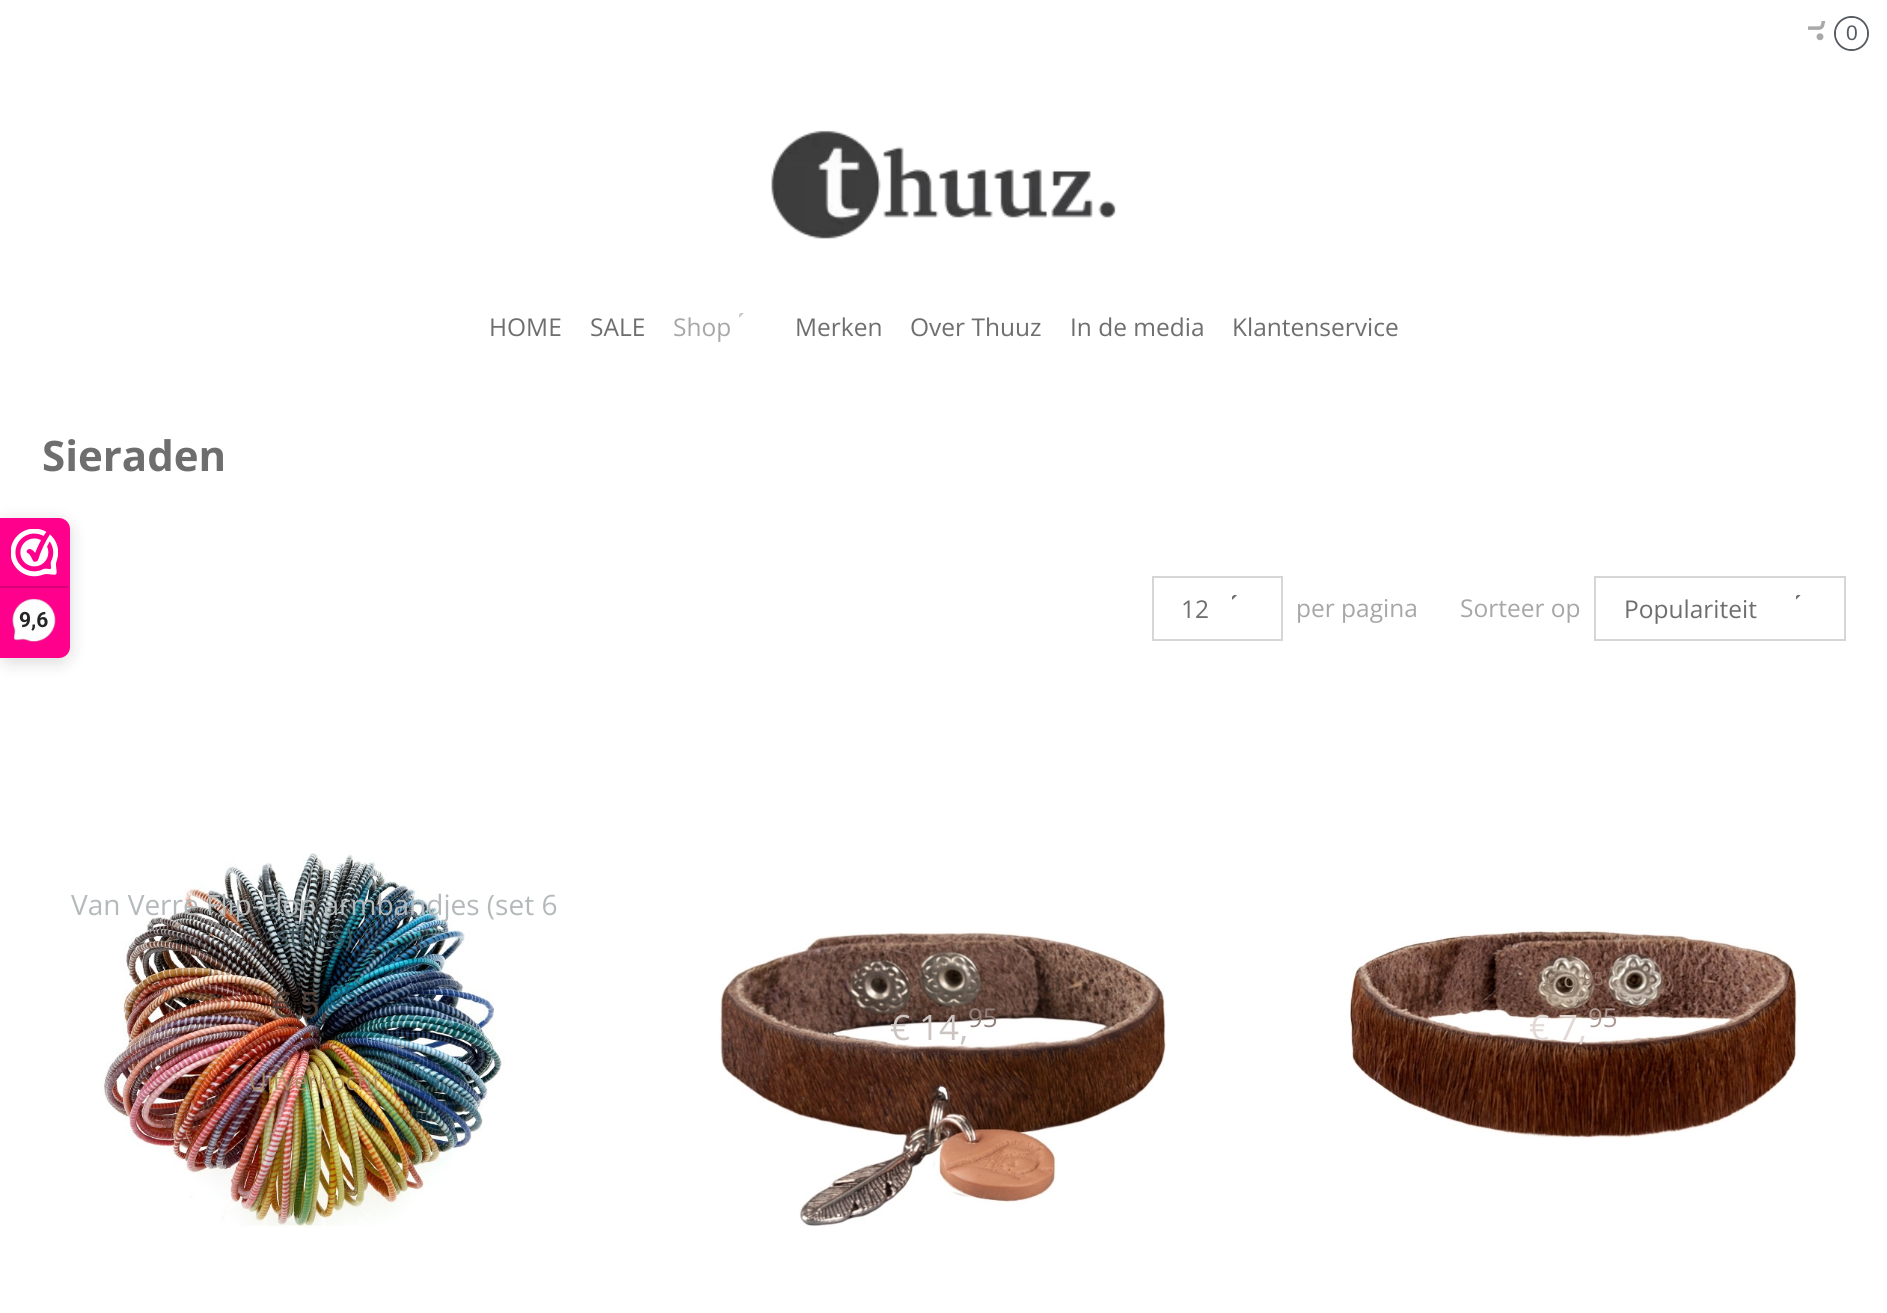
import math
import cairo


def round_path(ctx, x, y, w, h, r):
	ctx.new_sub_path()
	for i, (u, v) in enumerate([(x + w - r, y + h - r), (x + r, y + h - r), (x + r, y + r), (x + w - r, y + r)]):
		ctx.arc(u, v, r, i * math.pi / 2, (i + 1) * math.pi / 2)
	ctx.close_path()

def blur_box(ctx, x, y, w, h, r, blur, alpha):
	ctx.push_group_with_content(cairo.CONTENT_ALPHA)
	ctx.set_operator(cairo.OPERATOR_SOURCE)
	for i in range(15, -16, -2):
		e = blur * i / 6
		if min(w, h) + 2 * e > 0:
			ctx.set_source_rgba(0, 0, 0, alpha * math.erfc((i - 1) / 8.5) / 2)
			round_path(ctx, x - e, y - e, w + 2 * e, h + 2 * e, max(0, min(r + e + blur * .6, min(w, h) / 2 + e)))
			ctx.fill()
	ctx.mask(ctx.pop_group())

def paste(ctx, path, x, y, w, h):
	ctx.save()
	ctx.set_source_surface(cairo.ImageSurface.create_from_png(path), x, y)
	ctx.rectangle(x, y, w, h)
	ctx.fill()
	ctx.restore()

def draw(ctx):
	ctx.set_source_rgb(1, 1, 1)
	ctx.paint()
	ctx.set_source_rgb(0, 0, 0)
	blur_box(ctx, 0, 522, 70, 140, 11, 9, 0.15)
	ctx.set_source_rgb(0.996, 0, 0.549)
	ctx.new_path()
	ctx.move_to(0, 518)
	ctx.line_to(59, 518)
	ctx.curve_to(65, 518, 70, 523, 70, 529)
	ctx.line_to(70, 647)
	ctx.curve_to(70, 653, 65, 658, 59, 658)
	ctx.line_to(0, 658)
	ctx.close_path()
	ctx.fill()
	paste(ctx, 'media/1.png', 11, 529, 47, 48)
	ctx.set_source_rgb(0.847, 0, 0.467)
	ctx.rectangle(0, 586, 68, 2)
	ctx.fill()
	paste(ctx, 'media/2.png', 12, 598, 44, 45)
	ctx.select_font_face('Roboto', cairo.FONT_SLANT_NORMAL, cairo.FONT_WEIGHT_BOLD)
	ctx.set_font_size(21)
	ctx.set_source_rgb(0.153, 0.149, 0.149)
	ctx.move_to(19, 627)
	ctx.show_text('9,6')
	paste(ctx, 'media/3.png', 1808, 21, 18, 20)
	ctx.arc(1851.5, 33.5, 16.5, 0, 2 * math.pi)
	ctx.set_source_rgb(0.341, 0.357, 0.384)
	ctx.stroke()
	ctx.set_source_rgb(1, 1, 1)
	ctx.arc(1851.5, 33.5, 15.5, 0, 2 * math.pi)
	ctx.fill()
	ctx.select_font_face('Liberation Sans')
	ctx.set_source_rgb(0.341, 0.357, 0.384)
	ctx.move_to(1846, 40)
	ctx.show_text('0')
	paste(ctx, 'media/4.png', 771, 130, 345, 109)
	ctx.select_font_face('Open Sans')
	ctx.set_font_size(24.5)
	ctx.set_source_rgb(0.431, 0.431, 0.431)
	ctx.move_to(489, 336)
	ctx.show_text('HOME')
	ctx.move_to(590, 336)
	ctx.show_text('SALE')
	paste(ctx, 'media/5.png', 739, 313, 5, 5)
	ctx.set_source_rgb(0.655, 0.655, 0.655)
	ctx.move_to(673, 336)
	ctx.show_text('Shop')
	ctx.set_source_rgb(0.431, 0.431, 0.431)
	for x, y, s in [
		(795, 336, 'Merken'),
		(910, 336, 'Over Thuuz'),
		(1070, 336, 'In de media'),
		(1232, 336, 'Klantenservice'),
	]:
		ctx.move_to(x, y)
		ctx.show_text(s)
	ctx.select_font_face('Open Sans', cairo.FONT_SLANT_NORMAL, cairo.FONT_WEIGHT_BOLD)
	ctx.set_font_size(42)
	ctx.move_to(42, 471)
	ctx.show_text('Sieraden')
	ctx.rectangle(1153, 577, 129, 63)
	ctx.set_source_rgb(0.839, 0.839, 0.839)
	ctx.stroke()
	paste(ctx, 'media/6.png', 1232, 595, 5, 5)
	ctx.select_font_face('Open Sans')
	ctx.set_font_size(24.5)
	ctx.set_source_rgb(0.431, 0.431, 0.431)
	ctx.move_to(1181, 618)
	ctx.show_text('12')
	ctx.set_source_rgb(0.655, 0.655, 0.655)
	ctx.move_to(1296, 617)
	ctx.show_text('per pagina')
	ctx.move_to(1460, 617)
	ctx.show_text('Sorteer op')
	ctx.rectangle(1595, 577, 250, 63)
	ctx.set_source_rgb(0.839, 0.839, 0.839)
	ctx.stroke()
	paste(ctx, 'media/7.png', 1796, 595, 5, 5)
	ctx.set_source_rgb(0.431, 0.431, 0.431)
	ctx.move_to(1624, 618)
	ctx.show_text('Populariteit')
	paste(ctx, 'media/8.png', 101, 853, 404, 375)
	ctx.set_font_size(28)
	ctx.set_source_rgb(0.706, 0.729, 0.737)
	ctx.move_to(71, 915)
	ctx.show_text('Van Verre Flip-Flop armbandjes (set 6')
	ctx.set_source_rgb(0.267, 0.345, 0.373)
	ctx.move_to(276, 946)
	ctx.show_text('stuks)')
	ctx.set_font_size(35)
	ctx.set_source_rgb(0.31, 0.243, 0.216)
	ctx.move_to(271, 1017)
	ctx.show_text('€ 5,')
	ctx.set_font_size(26)
	ctx.set_source_rgb(0.106, 0.353, 0.443)
	ctx.move_to(329, 1004)
	ctx.show_text('95')
	ctx.set_font_size(24.5)
	ctx.set_source_rgb(0.675, 0.541, 0.376)
	ctx.move_to(249, 1090)
	ctx.show_text('Uitverkocht')
	paste(ctx, 'media/9.png', 719, 931, 447, 296)
	ctx.set_font_size(35)
	ctx.set_source_rgb(0.796, 0.769, 0.757)
	ctx.move_to(890, 1040)
	ctx.show_text('€ 14,')
	ctx.set_font_size(26)
	ctx.set_source_rgb(0.569, 0.502, 0.478)
	ctx.move_to(968, 1027)
	ctx.show_text('95')
	paste(ctx, 'media/10.png', 1349, 929, 450, 210)
	ctx.set_font_size(24.5)
	ctx.set_source_rgb(0.58, 0.514, 0.451)
	ctx.move_to(1543, 994)
	ctx.show_text('€ 9,')
	ctx.set_font_size(18)
	ctx.set_source_rgb(0.561, 0.451, 0.4)
	ctx.move_to(1583, 985)
	ctx.show_text('95')
	ctx.set_font_size(35)
	ctx.set_source_rgb(0.882, 0.851, 0.835)
	ctx.move_to(1529, 1040)
	ctx.show_text('€ 7,')
	ctx.set_font_size(26)
	ctx.set_source_rgb(0.675, 0.6, 0.576)
	ctx.move_to(1588, 1027)
	ctx.show_text('95')


surface = cairo.ImageSurface(cairo.FORMAT_RGB24, 1887, 1313)
ctx = cairo.Context(surface)
options = cairo.FontOptions()
options.set_hint_metrics(cairo.HINT_METRICS_OFF)
options.set_hint_style(cairo.HINT_STYLE_NONE)
ctx.set_font_options(options)
ctx.set_miter_limit(4)
draw(ctx)
surface.write_to_png('image.png')
